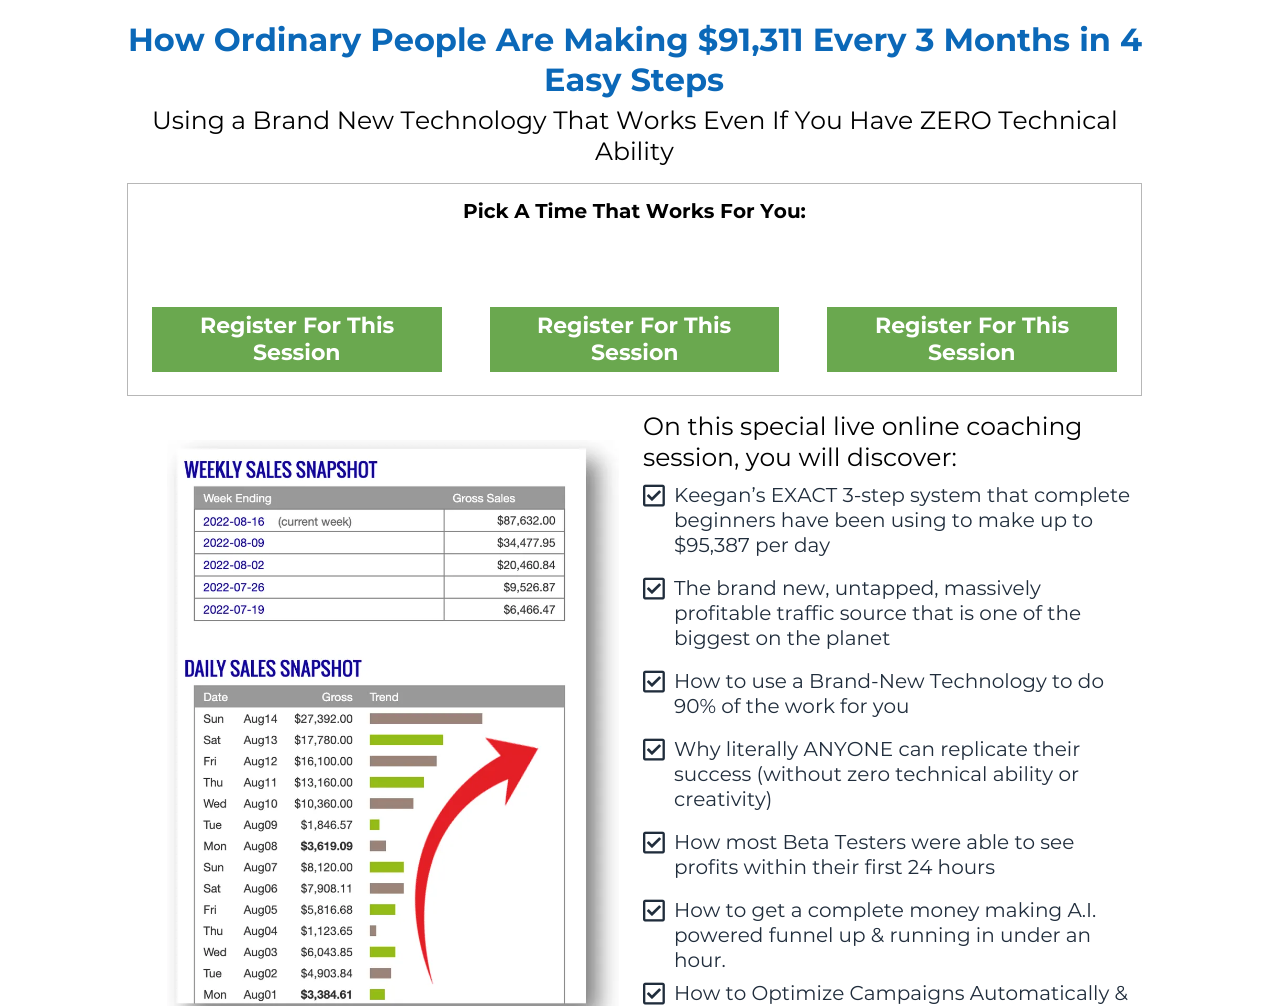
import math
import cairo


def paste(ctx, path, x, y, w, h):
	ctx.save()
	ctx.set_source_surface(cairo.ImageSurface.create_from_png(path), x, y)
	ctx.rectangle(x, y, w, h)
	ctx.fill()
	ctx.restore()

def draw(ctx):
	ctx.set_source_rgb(1, 1, 1)
	ctx.paint()
	ctx.select_font_face('Montserrat', cairo.FONT_SLANT_NORMAL, cairo.FONT_WEIGHT_BOLD)
	ctx.set_font_size(32)
	ctx.set_source_rgb(0.043, 0.408, 0.722)
	ctx.move_to(128, 51)
	ctx.show_text('How Ordinary People Are Making $91,311 Every 3 Months in 4')
	ctx.move_to(544, 91)
	ctx.show_text('Easy Steps')
	ctx.select_font_face('Montserrat')
	ctx.set_font_size(25)
	ctx.set_source_rgb(0, 0, 0)
	ctx.move_to(152, 129)
	ctx.show_text('Using a Brand New Technology That Works Even If You Have ZERO Technical')
	ctx.move_to(595, 160)
	ctx.show_text('Ability')
	ctx.rectangle(127.5, 183.5, 1014, 212)
	ctx.set_source_rgb(0.718, 0.718, 0.718)
	ctx.set_line_width(1)
	ctx.stroke()
	ctx.select_font_face('Montserrat', cairo.FONT_SLANT_NORMAL, cairo.FONT_WEIGHT_BOLD)
	ctx.set_font_size(20)
	ctx.set_source_rgb(0, 0, 0)
	ctx.move_to(463, 218)
	ctx.show_text('Pick A Time That Works For You:')
	ctx.set_source_rgb(0.416, 0.659, 0.31)
	ctx.rectangle(152, 307, 290, 65)
	ctx.fill()
	ctx.set_font_size(22)
	ctx.set_source_rgb(1, 1, 1)
	ctx.move_to(200, 333)
	ctx.show_text('Register For This')
	ctx.move_to(253, 360)
	ctx.show_text('Session')
	ctx.set_source_rgb(0.416, 0.659, 0.31)
	ctx.rectangle(490, 307, 289, 65)
	ctx.fill()
	ctx.set_source_rgb(1, 1, 1)
	ctx.move_to(537, 333)
	ctx.show_text('Register For This')
	ctx.move_to(591, 360)
	ctx.show_text('Session')
	ctx.set_source_rgb(0.416, 0.659, 0.31)
	ctx.rectangle(827, 307, 290, 65)
	ctx.fill()
	ctx.set_source_rgb(1, 1, 1)
	ctx.move_to(875, 333)
	ctx.show_text('Register For This')
	ctx.move_to(928, 360)
	ctx.show_text('Session')
	paste(ctx, 'media/1.png', 167, 440, 452, 566)
	ctx.select_font_face('Montserrat')
	ctx.set_font_size(25)
	ctx.set_source_rgb(0, 0, 0)
	ctx.move_to(643, 435)
	ctx.show_text('On this special live online coaching')
	ctx.move_to(643, 466)
	ctx.show_text('session, you will discover:')
	paste(ctx, 'media/2.png', 643, 484, 22, 23)
	ctx.set_font_size(20)
	ctx.set_source_rgb(0.125, 0.176, 0.235)
	for x, y, s in [
		(674, 502, 'Keegan’s EXACT 3-step system that complete'),
		(674, 527, 'beginners have been using to make up to'),
		(674, 552, '$95,387 per day'),
	]:
		ctx.move_to(x, y)
		ctx.show_text(s)
	paste(ctx, 'media/2.png', 643, 577, 22, 23)
	for x, y, s in [
		(674, 595, 'The brand new, untapped, massively'),
		(674, 620, 'profitable traffic source that is one of the'),
		(674, 645, 'biggest on the planet'),
	]:
		ctx.move_to(x, y)
		ctx.show_text(s)
	paste(ctx, 'media/2.png', 643, 670, 22, 23)
	ctx.move_to(674, 688)
	ctx.show_text('How to use a Brand-New Technology to do')
	ctx.move_to(674, 713)
	ctx.show_text('90% of the work for you')
	paste(ctx, 'media/2.png', 643, 738, 22, 23)
	for x, y, s in [
		(674, 756, 'Why literally ANYONE can replicate their'),
		(674, 781, 'success (without zero technical ability or'),
		(674, 806, 'creativity)'),
	]:
		ctx.move_to(x, y)
		ctx.show_text(s)
	paste(ctx, 'media/2.png', 643, 831, 22, 23)
	ctx.move_to(674, 849)
	ctx.show_text('How most Beta Testers were able to see')
	ctx.move_to(674, 874)
	ctx.show_text('profits within their first 24 hours')
	paste(ctx, 'media/2.png', 643, 899, 22, 23)
	for x, y, s in [
		(674, 917, 'How to get a complete money making A.I.'),
		(674, 942, 'powered funnel up & running in under an'),
		(674, 967, 'hour.'),
	]:
		ctx.move_to(x, y)
		ctx.show_text(s)
	paste(ctx, 'media/2.png', 643, 982, 22, 23)
	ctx.move_to(674, 1000)
	ctx.show_text('How to Optimize Campaigns Automatically &')


surface = cairo.ImageSurface(cairo.FORMAT_RGB24, 1269, 1006)
ctx = cairo.Context(surface)
options = cairo.FontOptions()
options.set_hint_metrics(cairo.HINT_METRICS_OFF)
options.set_hint_style(cairo.HINT_STYLE_NONE)
ctx.set_font_options(options)
ctx.set_miter_limit(4)
draw(ctx)
surface.write_to_png('image.png')
